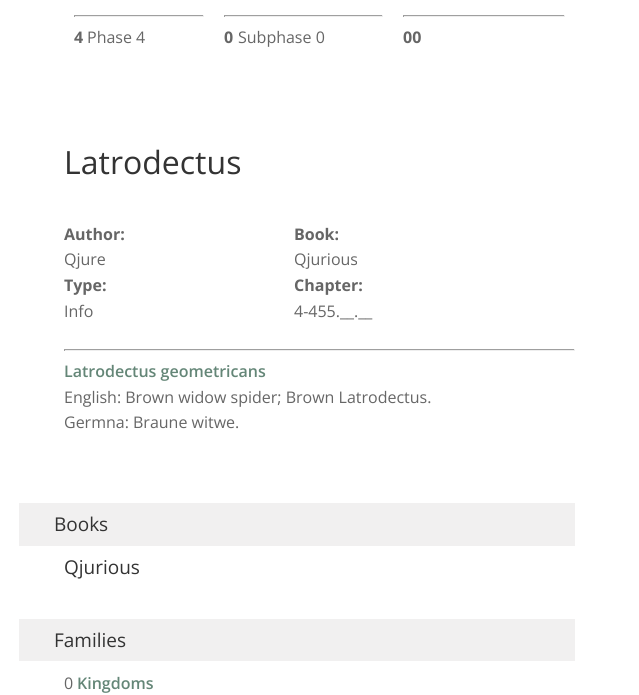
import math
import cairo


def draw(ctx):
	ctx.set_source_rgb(1, 1, 1)
	ctx.paint()
	ctx.set_source_rgb(0.624, 0.624, 0.624)
	ctx.rectangle(74, 15, 130, 1)
	ctx.fill()
	ctx.set_source_rgb(0.933, 0.933, 0.933)
	ctx.rectangle(203, 15, 1, 2)
	ctx.rectangle(74, 16, 130, 1)
	ctx.fill()
	ctx.set_source_rgb(0.624, 0.624, 0.624)
	ctx.rectangle(74, 15, 1, 2)
	ctx.fill()
	ctx.select_font_face('Open Sans', cairo.FONT_SLANT_NORMAL, cairo.FONT_WEIGHT_BOLD)
	ctx.set_font_size(16)
	ctx.set_source_rgb(0.4, 0.4, 0.4)
	ctx.move_to(74, 43)
	ctx.show_text('4')
	ctx.select_font_face('Open Sans')
	ctx.move_to(87, 43)
	ctx.show_text('Phase 4')
	ctx.set_source_rgb(0.624, 0.624, 0.624)
	ctx.rectangle(224, 15, 159, 1)
	ctx.fill()
	ctx.set_source_rgb(0.933, 0.933, 0.933)
	ctx.rectangle(382, 15, 1, 2)
	ctx.rectangle(224, 16, 159, 1)
	ctx.fill()
	ctx.set_source_rgb(0.624, 0.624, 0.624)
	ctx.rectangle(224, 15, 1, 2)
	ctx.fill()
	ctx.select_font_face('Open Sans', cairo.FONT_SLANT_NORMAL, cairo.FONT_WEIGHT_BOLD)
	ctx.set_source_rgb(0.4, 0.4, 0.4)
	ctx.move_to(224, 43)
	ctx.show_text('0')
	ctx.select_font_face('Open Sans')
	ctx.move_to(238, 43)
	ctx.show_text('Subphase 0')
	ctx.set_source_rgb(0.624, 0.624, 0.624)
	ctx.rectangle(403, 15, 162, 1)
	ctx.fill()
	ctx.set_source_rgb(0.933, 0.933, 0.933)
	ctx.rectangle(564, 15, 1, 2)
	ctx.rectangle(403, 16, 162, 1)
	ctx.fill()
	ctx.set_source_rgb(0.624, 0.624, 0.624)
	ctx.rectangle(403, 15, 1, 2)
	ctx.fill()
	ctx.select_font_face('Open Sans', cairo.FONT_SLANT_NORMAL, cairo.FONT_WEIGHT_BOLD)
	ctx.set_source_rgb(0.4, 0.4, 0.4)
	ctx.move_to(403, 43)
	ctx.show_text('00')
	ctx.select_font_face('Open Sans')
	ctx.set_font_size(32)
	ctx.set_source_rgb(0.2, 0.2, 0.2)
	ctx.move_to(64, 174)
	ctx.show_text('Latrodectus')
	ctx.select_font_face('Open Sans', cairo.FONT_SLANT_NORMAL, cairo.FONT_WEIGHT_BOLD)
	ctx.set_font_size(16)
	ctx.set_source_rgb(0.4, 0.4, 0.4)
	ctx.move_to(64, 240)
	ctx.show_text('Author:')
	ctx.select_font_face('Open Sans')
	ctx.move_to(64, 265)
	ctx.show_text('Qjure')
	ctx.select_font_face('Open Sans', cairo.FONT_SLANT_NORMAL, cairo.FONT_WEIGHT_BOLD)
	ctx.move_to(294, 240)
	ctx.show_text('Book:')
	ctx.select_font_face('Open Sans')
	ctx.move_to(294, 265)
	ctx.show_text('Qjurious')
	ctx.select_font_face('Open Sans', cairo.FONT_SLANT_NORMAL, cairo.FONT_WEIGHT_BOLD)
	ctx.move_to(64, 291)
	ctx.show_text('Type:')
	ctx.select_font_face('Open Sans')
	ctx.move_to(64, 317)
	ctx.show_text('Info')
	ctx.select_font_face('Open Sans', cairo.FONT_SLANT_NORMAL, cairo.FONT_WEIGHT_BOLD)
	ctx.move_to(294, 291)
	ctx.show_text('Chapter:')
	ctx.select_font_face('Open Sans')
	ctx.move_to(294, 317)
	ctx.show_text('4-455.__.__')
	ctx.set_source_rgb(0.624, 0.624, 0.624)
	ctx.rectangle(64, 349, 511, 1)
	ctx.fill()
	ctx.set_source_rgb(0.933, 0.933, 0.933)
	ctx.rectangle(574, 349, 1, 2)
	ctx.rectangle(64, 350, 511, 1)
	ctx.fill()
	ctx.set_source_rgb(0.624, 0.624, 0.624)
	ctx.rectangle(64, 349, 1, 2)
	ctx.fill()
	ctx.select_font_face('Open Sans SemiBold')
	ctx.set_source_rgb(0.392, 0.525, 0.467)
	ctx.move_to(64, 377)
	ctx.show_text('Latrodectus geometricans')
	ctx.select_font_face('Open Sans')
	ctx.set_source_rgb(0.4, 0.4, 0.4)
	ctx.move_to(64, 403)
	ctx.show_text('English: Brown widow spider; Brown Latrodectus.')
	ctx.move_to(64, 428)
	ctx.show_text('Germna: Braune witwe.')
	ctx.set_source_rgb(0.945, 0.941, 0.941)
	ctx.rectangle(19, 503, 556, 43)
	ctx.fill()
	ctx.set_font_size(19)
	ctx.set_source_rgb(0.2, 0.2, 0.2)
	ctx.move_to(54, 531)
	ctx.show_text('Books')
	ctx.move_to(64, 574)
	ctx.show_text('Qjurious')
	ctx.set_source_rgb(0.945, 0.941, 0.941)
	ctx.rectangle(19, 619, 556, 42)
	ctx.fill()
	ctx.set_source_rgb(0.2, 0.2, 0.2)
	ctx.move_to(54, 647)
	ctx.show_text('Families')
	ctx.set_font_size(16)
	ctx.set_source_rgb(0.4, 0.4, 0.4)
	ctx.move_to(64, 689)
	ctx.show_text('0')
	ctx.select_font_face('Open Sans SemiBold')
	ctx.set_source_rgb(0.392, 0.525, 0.467)
	ctx.move_to(77, 689)
	ctx.show_text('Kingdoms')


surface = cairo.ImageSurface(cairo.FORMAT_RGB24, 639, 695)
ctx = cairo.Context(surface)
options = cairo.FontOptions()
options.set_hint_metrics(cairo.HINT_METRICS_OFF)
options.set_hint_style(cairo.HINT_STYLE_NONE)
ctx.set_font_options(options)
ctx.set_miter_limit(4)
draw(ctx)
surface.write_to_png('image.png')
